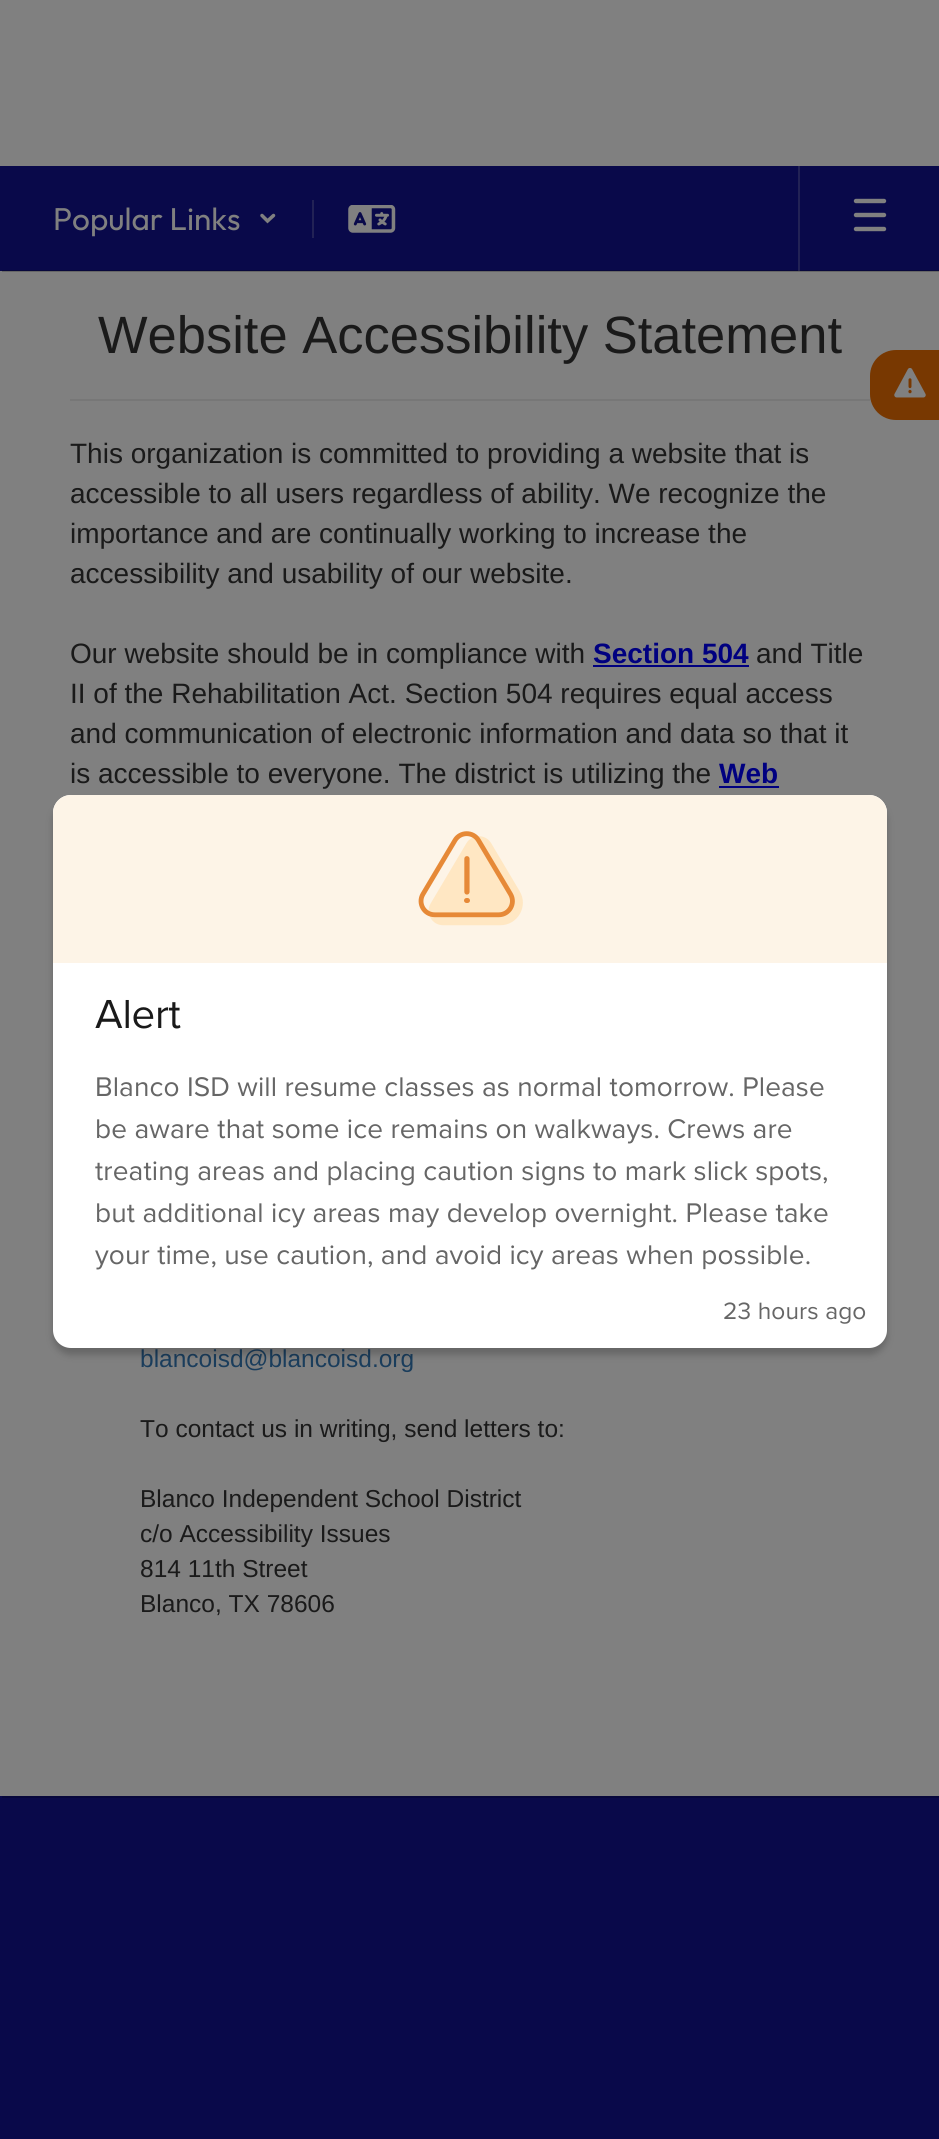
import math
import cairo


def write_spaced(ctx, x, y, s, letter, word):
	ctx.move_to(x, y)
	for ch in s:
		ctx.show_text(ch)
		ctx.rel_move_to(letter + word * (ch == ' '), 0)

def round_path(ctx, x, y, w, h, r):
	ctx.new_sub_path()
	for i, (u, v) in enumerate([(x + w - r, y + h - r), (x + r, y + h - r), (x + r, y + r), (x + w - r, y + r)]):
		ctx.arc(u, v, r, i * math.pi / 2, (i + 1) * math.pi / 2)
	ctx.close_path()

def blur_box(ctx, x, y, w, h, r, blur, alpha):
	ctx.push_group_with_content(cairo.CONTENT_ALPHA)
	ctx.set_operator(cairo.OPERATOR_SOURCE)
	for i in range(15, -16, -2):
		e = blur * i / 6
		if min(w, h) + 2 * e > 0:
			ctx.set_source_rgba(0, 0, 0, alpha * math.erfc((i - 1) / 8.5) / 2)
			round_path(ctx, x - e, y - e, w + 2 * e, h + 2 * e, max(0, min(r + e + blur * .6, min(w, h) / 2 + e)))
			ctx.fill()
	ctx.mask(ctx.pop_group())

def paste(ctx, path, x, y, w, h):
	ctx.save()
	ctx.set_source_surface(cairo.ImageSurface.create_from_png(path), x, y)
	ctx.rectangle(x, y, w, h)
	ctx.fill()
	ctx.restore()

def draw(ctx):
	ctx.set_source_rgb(0.502, 0.502, 0.502)
	ctx.paint()
	ctx.set_source_rgb(0.4, 0.4, 0.4)
	ctx.rectangle(2, 271, 937, 1)
	ctx.fill()
	ctx.set_source_rgb(0.039, 0.039, 0.29)
	ctx.rectangle(0, 166, 939, 105)
	ctx.fill()
	ctx.set_source_rgb(0.133, 0.133, 0.333)
	ctx.rectangle(798, 166, 2, 105)
	ctx.fill()
	ctx.set_source_rgb(0.031, 0.031, 0.231)
	ctx.rectangle(2, 270, 937, 1)
	ctx.fill()
	ctx.set_source_rgb(0.125, 0.125, 0.286)
	ctx.rectangle(798, 270, 2, 1)
	ctx.fill()
	ctx.select_font_face('Outfit')
	ctx.set_font_size(31.5)
	ctx.set_source_rgb(0.502, 0.502, 0.502)
	ctx.move_to(53, 230)
	ctx.show_text('Popular Links')
	ctx.new_path()
	ctx.move_to(262, 215.5)
	ctx.line_to(267.5, 221)
	ctx.line_to(273.5, 215.5)
	ctx.set_line_width(3.5)
	ctx.set_line_cap(cairo.LINE_CAP_ROUND)
	ctx.stroke()
	ctx.set_source_rgb(0.133, 0.133, 0.333)
	ctx.rectangle(312, 200, 2, 38)
	ctx.fill()
	paste(ctx, 'media/1.png', 348, 205, 48, 28)
	ctx.new_path()
	ctx.move_to(856, 201)
	ctx.line_to(884, 201)
	ctx.move_to(856, 215)
	ctx.line_to(884, 215)
	ctx.move_to(856, 229)
	ctx.line_to(884, 229)
	ctx.set_source_rgb(0.502, 0.502, 0.502)
	ctx.set_line_width(4.4)
	ctx.stroke()
	ctx.select_font_face('Liberation Sans')
	ctx.set_font_size(52.5)
	ctx.set_source_rgb(0.102, 0.102, 0.102)
	ctx.move_to(98, 353)
	ctx.show_text('Website Accessibility Statement')
	ctx.set_source_rgb(0.467, 0.467, 0.467)
	ctx.rectangle(70, 399, 800, 2)
	ctx.fill()
	ctx.set_font_size(28)
	ctx.set_source_rgb(0.102, 0.102, 0.102)
	for x, y, s in [
		(70, 463, 'This organization is committed to providing a website that is'),
		(70, 503, 'accessible to all users regardless of ability. We recognize the'),
		(70, 543, 'importance and are continually working to increase the'),
		(70, 583, 'accessibility and usability of our website.'),
		(70, 663, 'Our website should be in compliance with'),
	]:
		ctx.move_to(x, y)
		ctx.show_text(s)
	ctx.select_font_face('Liberation Sans', cairo.FONT_SLANT_NORMAL, cairo.FONT_WEIGHT_BOLD)
	ctx.set_source_rgb(0, 0, 0.502)
	ctx.move_to(593, 663)
	ctx.show_text('Section 504')
	ctx.rectangle(593, 665, 156, 2)
	ctx.fill()
	ctx.select_font_face('Liberation Sans')
	ctx.set_source_rgb(0.102, 0.102, 0.102)
	for x, y, s in [
		(756, 663, 'and Title'),
		(70, 703, 'II of the Rehabilitation Act. Section 504 requires equal access'),
		(70, 743, 'and communication of electronic information and data so that it'),
		(70, 783, 'is accessible to everyone. The district is utilizing the'),
	]:
		ctx.move_to(x, y)
		ctx.show_text(s)
	ctx.select_font_face('Liberation Sans', cairo.FONT_SLANT_NORMAL, cairo.FONT_WEIGHT_BOLD)
	ctx.set_source_rgb(0, 0, 0.502)
	ctx.move_to(719, 783)
	ctx.show_text('Web')
	ctx.rectangle(719, 786, 60, 2)
	ctx.fill()
	ctx.select_font_face('Liberation Sans')
	ctx.set_font_size(24.5)
	ctx.set_source_rgb(0.102, 0.239, 0.361)
	ctx.move_to(140, 1367)
	ctx.show_text('blancoisd@blancoisd.org')
	ctx.set_source_rgb(0.102, 0.102, 0.102)
	for x, y, s in [
		(140, 1437, 'To contact us in writing, send letters to:'),
		(140, 1507, 'Blanco Independent School District'),
		(140, 1542, 'c/o Accessibility Issues'),
		(140, 1577, '814 11th Street'),
		(140, 1612, 'Blanco, TX 78606'),
	]:
		ctx.move_to(x, y)
		ctx.show_text(s)
	ctx.set_source_rgb(0.471, 0.22, 0.004)
	ctx.new_path()
	ctx.move_to(896, 350)
	ctx.line_to(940, 350)
	ctx.line_to(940, 420)
	ctx.line_to(896, 420)
	ctx.curve_to(881.5, 420, 870, 408.5, 870, 394)
	ctx.line_to(870, 376)
	ctx.curve_to(870, 361.5, 881.5, 350, 896, 350)
	ctx.close_path()
	ctx.fill()
	paste(ctx, 'media/2.png', 894, 368, 32, 30)
	ctx.set_source_rgb(0, 0, 0)
	blur_box(ctx, 53, 802, 834, 553, 18, 3.5, 0.2)
	ctx.set_source_rgb(1, 1, 1)
	round_path(ctx, 53, 795, 834, 553, 18)
	ctx.fill()
	ctx.set_source_rgb(0.992, 0.957, 0.906)
	ctx.new_path()
	ctx.move_to(71, 795)
	ctx.line_to(869, 795)
	ctx.curve_to(879, 795, 887, 803, 887, 813)
	ctx.line_to(887, 963)
	ctx.line_to(53, 963)
	ctx.line_to(53, 813)
	ctx.curve_to(53, 803, 61, 795, 71, 795)
	ctx.close_path()
	ctx.fill()
	paste(ctx, 'media/3.png', 418, 831, 105, 95)
	ctx.select_font_face('Proxima Nova')
	ctx.set_font_size(42)
	ctx.set_source_rgb(0.102, 0.102, 0.102)
	write_spaced(ctx, 95, 1028, 'Alert', -0.25, 0)
	ctx.set_font_size(28)
	ctx.set_source_rgb(0.4, 0.4, 0.4)
	write_spaced(ctx, 95, 1096, 'Blanco ISD will resume classes as normal tomorrow. Please', 0.1, 0)
	write_spaced(ctx, 95, 1138, 'be aware that some ice remains on walkways. Crews are', 0.1, 0)
	ctx.save()
	ctx.rectangle(95, 991, 750, 287)
	ctx.clip()
	write_spaced(ctx, 95, 1180, 'treating areas and placing caution signs to mark slick spots,', 0.1, 0)
	ctx.restore()
	write_spaced(ctx, 95, 1222, 'but additional icy areas may develop overnight. Please take', 0.1, 0)
	write_spaced(ctx, 95, 1264, 'your time, use caution, and avoid icy areas when possible.', 0.1, 0)
	ctx.set_font_size(24.5)
	write_spaced(ctx, 723, 1319, '23 hours ago', 0.1, 0)
	ctx.set_source_rgb(0.039, 0.039, 0.29)
	ctx.rectangle(0, 1796, 939, 343)
	ctx.fill()
	ctx.set_source_rgb(0.031, 0.031, 0.231)
	ctx.rectangle(2, 1796, 937, 2)
	ctx.fill()


surface = cairo.ImageSurface(cairo.FORMAT_RGB24, 939, 2139)
ctx = cairo.Context(surface)
options = cairo.FontOptions()
options.set_hint_metrics(cairo.HINT_METRICS_OFF)
options.set_hint_style(cairo.HINT_STYLE_NONE)
ctx.set_font_options(options)
ctx.set_miter_limit(4)
draw(ctx)
surface.write_to_png('image.png')
